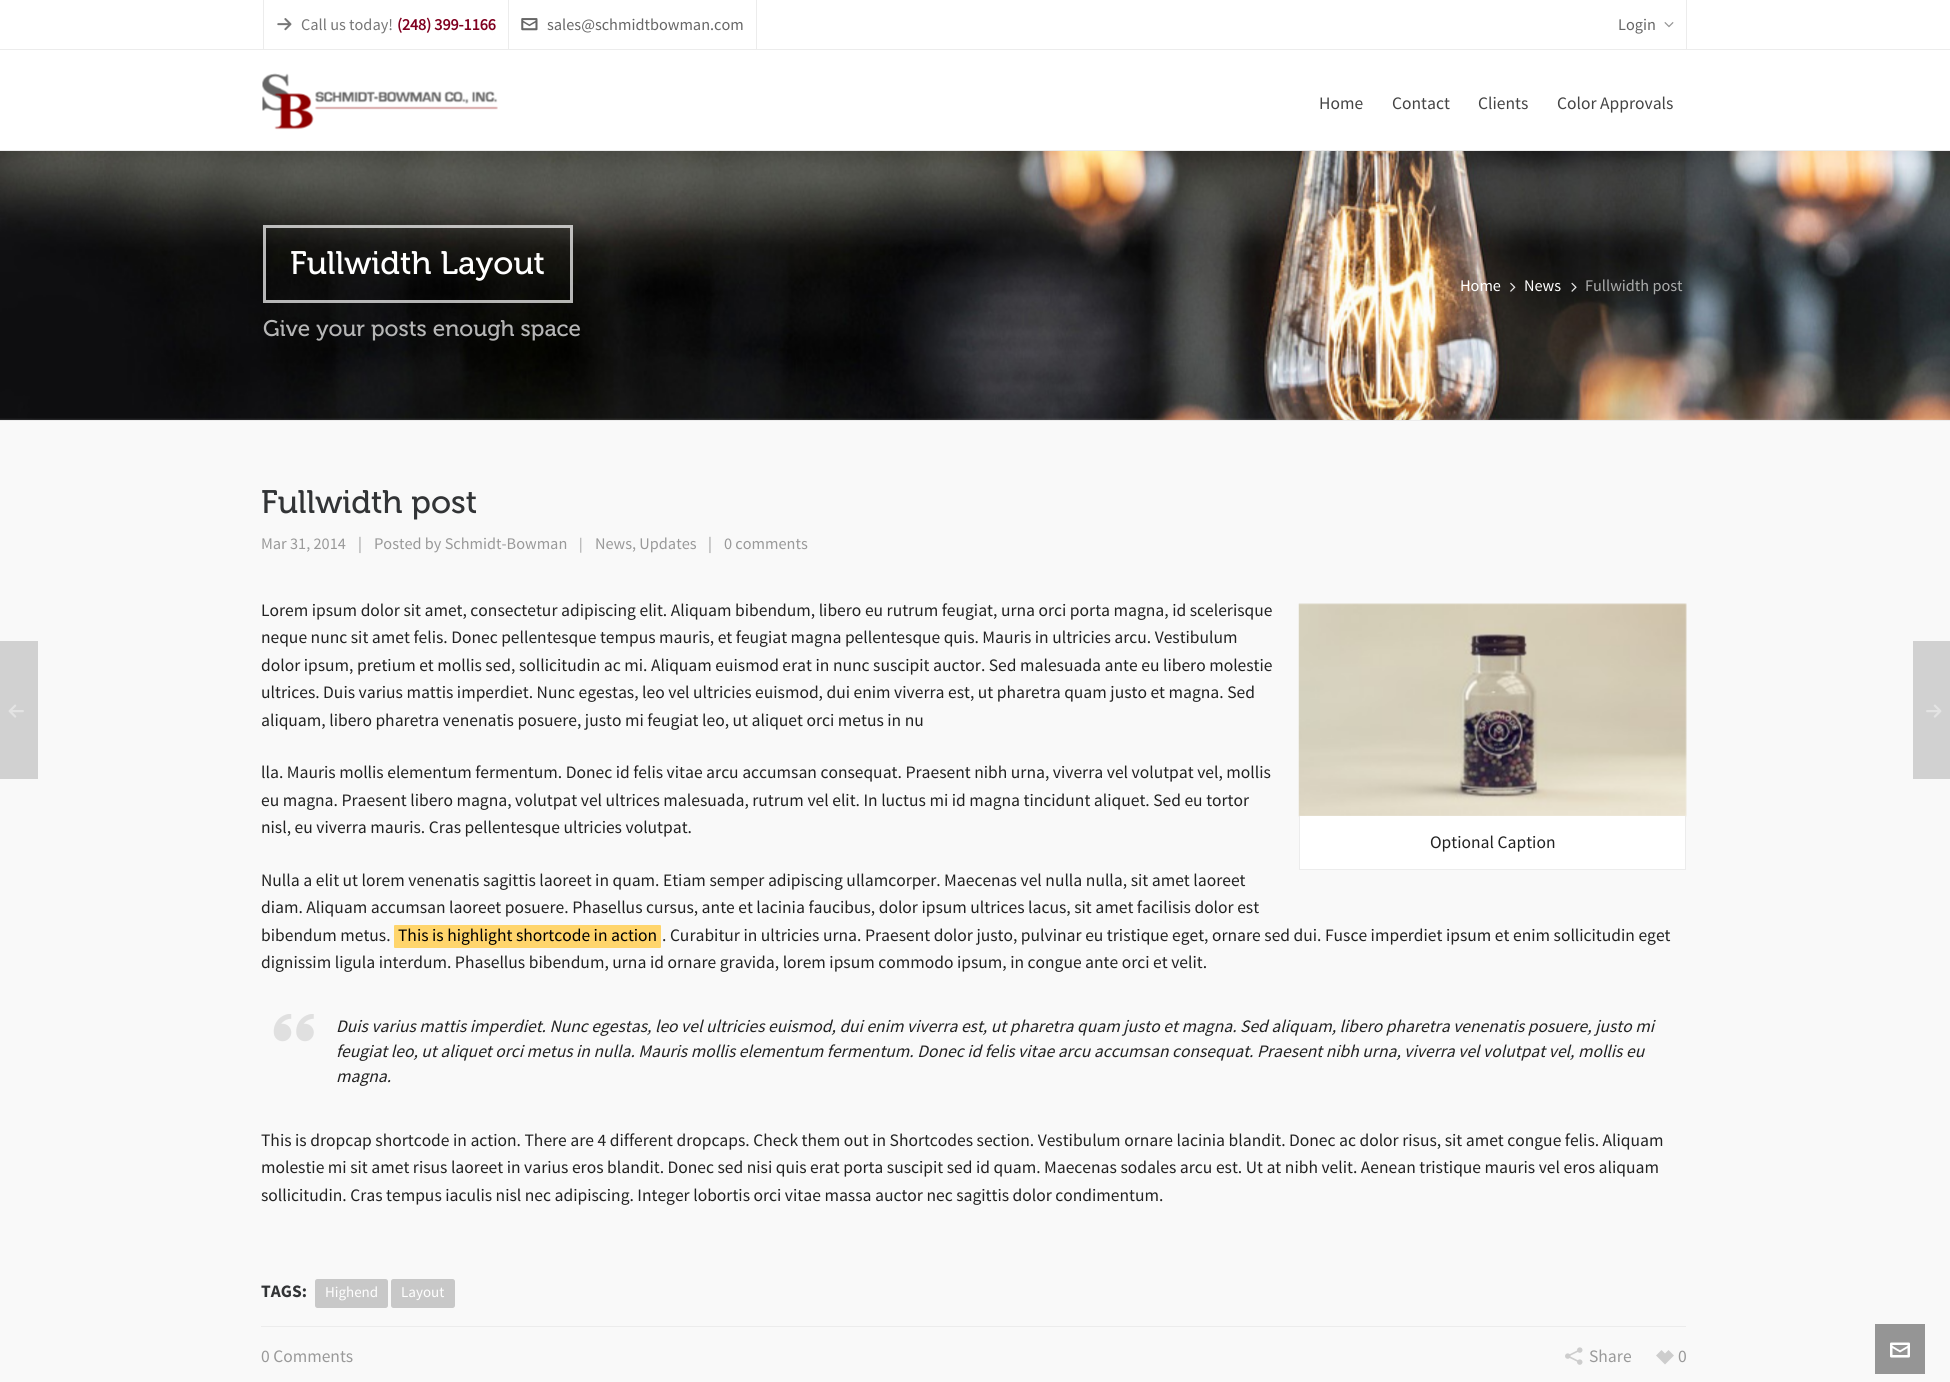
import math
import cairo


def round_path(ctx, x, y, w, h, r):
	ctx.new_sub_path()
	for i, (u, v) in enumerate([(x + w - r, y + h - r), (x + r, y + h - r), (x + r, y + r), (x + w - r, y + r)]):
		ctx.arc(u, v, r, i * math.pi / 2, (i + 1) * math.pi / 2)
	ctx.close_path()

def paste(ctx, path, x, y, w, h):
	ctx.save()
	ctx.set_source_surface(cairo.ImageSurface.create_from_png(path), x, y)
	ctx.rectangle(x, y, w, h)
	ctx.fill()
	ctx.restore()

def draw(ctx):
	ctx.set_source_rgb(0.976, 0.976, 0.976)
	ctx.paint()
	ctx.set_source_rgb(1, 1, 1)
	ctx.rectangle(0, 0, 1950, 49)
	ctx.fill()
	ctx.set_source_rgb(0.922, 0.922, 0.922)
	ctx.rectangle(0, 49, 1950, 1)
	ctx.rectangle(508, 0, 1, 50)
	ctx.rectangle(263, 0, 1, 50)
	ctx.fill()
	paste(ctx, 'media/1.png', 277, 18, 15, 13)
	ctx.select_font_face('Source Sans Pro')
	ctx.set_font_size(16.25)
	ctx.set_source_rgb(0.467, 0.467, 0.467)
	ctx.move_to(301, 30)
	ctx.show_text('Call us today!')
	ctx.select_font_face('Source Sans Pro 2', cairo.FONT_SLANT_NORMAL, cairo.FONT_WEIGHT_BOLD)
	ctx.set_source_rgb(0.502, 0, 0.125)
	ctx.move_to(397, 30)
	ctx.show_text('(248) 399-1166')
	ctx.set_source_rgb(0.922, 0.922, 0.922)
	ctx.rectangle(756, 0, 1, 50)
	ctx.fill()
	paste(ctx, 'media/2.png', 521, 18, 17, 13)
	ctx.select_font_face('Source Sans Pro')
	ctx.set_source_rgb(0.4, 0.4, 0.4)
	ctx.move_to(547, 30)
	ctx.show_text('sales@schmidtbowman.com')
	ctx.set_source_rgb(0.922, 0.922, 0.922)
	ctx.rectangle(1686, 0, 1, 50)
	ctx.fill()
	ctx.set_source_rgb(0.4, 0.4, 0.4)
	ctx.move_to(1618, 30)
	ctx.show_text('Login')
	paste(ctx, 'media/3.png', 1664, 22, 10, 6)
	ctx.set_source_rgb(1, 1, 1)
	ctx.rectangle(0, 50, 1950, 100)
	ctx.fill()
	ctx.set_source_rgb(0.922, 0.922, 0.922)
	ctx.rectangle(0, 150, 1950, 1)
	ctx.fill()
	paste(ctx, 'media/4.png', 262, 73, 236, 57)
	ctx.set_font_size(17.5)
	ctx.set_source_rgb(0.267, 0.267, 0.267)
	for x, y, s in [
		(1319, 109, 'Home'),
		(1392, 109, 'Contact'),
		(1478, 109, 'Clients'),
		(1557, 109, 'Color Approvals'),
	]:
		ctx.move_to(x, y)
		ctx.show_text(s)
	ctx.set_source_rgb(0.922, 0.922, 0.922)
	ctx.rectangle(0, 420, 1950, 1)
	ctx.fill()
	paste(ctx, 'media/5.png', 0, 151, 1950, 269)
	ctx.rectangle(264.5, 226.5, 307, 75)
	ctx.set_source_rgba(1, 1, 1, 0.7)
	ctx.set_line_width(3)
	ctx.stroke()
	ctx.select_font_face('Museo')
	ctx.set_font_size(32.5)
	ctx.set_source_rgb(1, 1, 1)
	ctx.move_to(290, 274)
	ctx.show_text('Fullwidth Layout')
	ctx.set_font_size(22.5)
	ctx.set_source_rgb(0.714, 0.714, 0.714)
	ctx.move_to(263, 336)
	ctx.show_text('Give your posts enough space')
	ctx.select_font_face('Source Sans Pro')
	ctx.set_font_size(16.25)
	ctx.set_source_rgb(1, 1, 1)
	ctx.move_to(1460, 291)
	ctx.show_text('Home')
	paste(ctx, 'media/6.png', 1510, 282, 6, 10)
	ctx.move_to(1524, 291)
	ctx.show_text('News')
	paste(ctx, 'media/7.png', 1571, 282, 6, 10)
	ctx.set_source_rgb(0.671, 0.675, 0.675)
	ctx.move_to(1585, 291)
	ctx.show_text('Fullwidth post')
	ctx.select_font_face('Museo')
	ctx.set_font_size(32.5)
	ctx.set_source_rgb(0.196, 0.204, 0.212)
	ctx.move_to(261, 513)
	ctx.show_text('Fullwidth post')
	ctx.select_font_face('Source Sans Pro')
	ctx.set_font_size(16.25)
	ctx.set_source_rgb(0.6, 0.6, 0.6)
	for x, y, s in [
		(261, 549, 'Mar 31, 2014'),
		(358, 549, '|'),
		(374, 549, 'Posted by Schmidt-Bowman'),
	]:
		ctx.move_to(x, y)
		ctx.show_text(s)
	ctx.set_font_size(15)
	ctx.move_to(579, 549)
	ctx.show_text('|')
	ctx.set_font_size(16.25)
	for x, y, s in [
		(595, 549, 'News, Updates'),
		(708, 549, '|'),
		(724, 549, '0 comments'),
	]:
		ctx.move_to(x, y)
		ctx.show_text(s)
	ctx.set_font_size(17.5)
	ctx.set_source_rgb(0.133, 0.133, 0.133)
	for x, y, s in [
		(261, 616, 'Lorem ipsum dolor sit amet, consectetur adipiscing elit. Aliquam bibendum, libero eu rutrum feugiat, urna orci porta magna, id scelerisque'),
		(261, 643, 'neque nunc sit amet felis. Donec pellentesque tempus mauris, et feugiat magna pellentesque quis. Mauris in ultricies arcu. Vestibulum'),
		(261, 671, 'dolor ipsum, pretium et mollis sed, sollicitudin ac mi. Aliquam euismod erat in nunc suscipit auctor. Sed malesuada ante eu libero molestie'),
		(261, 698, 'ultrices. Duis varius mattis imperdiet. Nunc egestas, leo vel ultricies euismod, dui enim viverra est, ut pharetra quam justo et magna. Sed'),
		(261, 726, 'aliquam, libero pharetra venenatis posuere, justo mi feugiat leo, ut aliquet orci metus in nu'),
		(261, 778, 'lla. Mauris mollis elementum fermentum. Donec id felis vitae arcu accumsan consequat. Praesent nibh urna, viverra vel volutpat vel, mollis'),
		(261, 806, 'eu magna. Praesent libero magna, volutpat vel ultrices malesuada, rutrum vel elit. In luctus mi id magna tincidunt aliquet. Sed eu tortor'),
		(261, 833, 'nisl, eu viverra mauris. Cras pellentesque ultricies volutpat.'),
	]:
		ctx.move_to(x, y)
		ctx.show_text(s)
	paste(ctx, 'media/8.png', 1298, 603, 389, 214)
	ctx.set_source_rgb(1, 1, 1)
	ctx.rectangle(1300, 816, 385, 53)
	ctx.fill()
	ctx.set_source_rgb(0.922, 0.922, 0.922)
	ctx.rectangle(1685, 816, 1, 54)
	ctx.rectangle(1299, 869, 387, 1)
	ctx.rectangle(1299, 816, 1, 54)
	ctx.fill()
	ctx.set_source_rgb(0.133, 0.133, 0.133)
	for x, y, s in [
		(1430, 848, 'Optional Caption'),
		(261, 886, 'Nulla a elit ut lorem venenatis sagittis laoreet in quam. Etiam semper adipiscing ullamcorper. Maecenas vel nulla nulla, sit amet laoreet'),
		(261, 913, 'diam. Aliquam accumsan laoreet posuere. Phasellus cursus, ante et lacinia faucibus, dolor ipsum ultrices lacus, sit amet facilisis dolor est'),
		(261, 941, 'bibendum metus.'),
	]:
		ctx.move_to(x, y)
		ctx.show_text(s)
	ctx.set_source_rgb(1, 0.835, 0.424)
	round_path(ctx, 394, 925, 267, 23, 1)
	ctx.fill()
	ctx.set_source_rgb(0, 0, 0)
	ctx.move_to(398, 941)
	ctx.show_text('This is highlight shortcode in action')
	ctx.set_source_rgb(0.133, 0.133, 0.133)
	ctx.move_to(662, 941)
	ctx.show_text('. Curabitur in ultricies urna. Praesent dolor justo, pulvinar eu tristique eget, ornare sed dui. Fusce imperdiet ipsum et enim sollicitudin eget')
	ctx.move_to(261, 968)
	ctx.show_text('dignissim ligula interdum. Phasellus bibendum, urna id ornare gravida, lorem ipsum commodo ipsum, in congue ante orci et velit.')
	paste(ctx, 'media/9.png', 273, 1014, 41, 28)
	ctx.select_font_face('Source Sans Pro', cairo.FONT_SLANT_ITALIC)
	for x, y, s in [
		(336, 1032, 'Duis varius mattis imperdiet. Nunc egestas, leo vel ultricies euismod, dui enim viverra est, ut pharetra quam justo et magna. Sed aliquam, libero pharetra venenatis posuere, justo mi'),
		(336, 1057, 'feugiat leo, ut aliquet orci metus in nulla. Mauris mollis elementum fermentum. Donec id felis vitae arcu accumsan consequat. Praesent nibh urna, viverra vel volutpat vel, mollis eu'),
		(336, 1082, 'magna.'),
	]:
		ctx.move_to(x, y)
		ctx.show_text(s)
	ctx.select_font_face('Source Sans Pro')
	for x, y, s in [
		(261, 1146, 'This is dropcap shortcode in action. There are 4 different dropcaps. Check them out in Shortcodes section. Vestibulum ornare lacinia blandit. Donec ac dolor risus, sit amet congue felis. Aliquam'),
		(261, 1173, 'molestie mi sit amet risus laoreet in varius eros blandit. Donec sed nisi quis erat porta suscipit sed id quam. Maecenas sodales arcu est. Ut at nibh velit. Aenean tristique mauris vel eros aliquam'),
		(261, 1201, 'sollicitudin. Cras tempus iaculis nisl nec adipiscing. Integer lobortis orci vitae massa auctor nec sagittis dolor condimentum.'),
	]:
		ctx.move_to(x, y)
		ctx.show_text(s)
	ctx.select_font_face('Source Sans Pro', cairo.FONT_SLANT_NORMAL, cairo.FONT_WEIGHT_BOLD)
	ctx.set_source_rgb(0.196, 0.204, 0.212)
	ctx.move_to(261, 1297)
	ctx.show_text('TAGS:')
	ctx.set_source_rgb(0.784, 0.784, 0.784)
	round_path(ctx, 315, 1279, 73, 29, 2.5)
	ctx.fill()
	ctx.select_font_face('Source Sans Pro')
	ctx.set_font_size(15)
	ctx.set_source_rgb(1, 1, 1)
	ctx.move_to(325, 1297)
	ctx.show_text('Highend')
	ctx.set_source_rgb(0.784, 0.784, 0.784)
	round_path(ctx, 391, 1279, 64, 29, 2.5)
	ctx.fill()
	ctx.set_source_rgb(1, 1, 1)
	ctx.move_to(401, 1297)
	ctx.show_text('Layout')
	ctx.set_source_rgb(0.922, 0.922, 0.922)
	ctx.rectangle(261, 1326, 1425, 1)
	ctx.fill()
	ctx.set_font_size(17.5)
	ctx.set_source_rgb(0.6, 0.6, 0.6)
	ctx.move_to(261, 1362)
	ctx.show_text('0 Comments')
	paste(ctx, 'media/10.png', 1565, 1347, 18, 18)
	ctx.move_to(1589, 1362)
	ctx.show_text('Share')
	ctx.set_source_rgb(0.804, 0.804, 0.804)
	ctx.new_path()
	ctx.move_to(1668.5, 1350)
	ctx.line_to(1665, 1353.5)
	ctx.line_to(1661.5, 1350)
	ctx.line_to(1656, 1355.5)
	ctx.line_to(1665, 1364.5)
	ctx.line_to(1674, 1355.5)
	ctx.close_path()
	ctx.fill()
	ctx.set_source_rgb(0.6, 0.6, 0.6)
	ctx.move_to(1678, 1362)
	ctx.show_text('0')
	ctx.set_source_rgb(0.82, 0.82, 0.82)
	ctx.rectangle(0, 641, 38, 138)
	ctx.fill()
	paste(ctx, 'media/11.png', 8, 704, 16, 14)
	ctx.rectangle(1913, 641, 37, 138)
	ctx.fill()
	paste(ctx, 'media/12.png', 1926, 704, 16, 14)
	ctx.set_source_rgb(0.584, 0.584, 0.584)
	ctx.rectangle(1875, 1324, 50, 50)
	ctx.fill()
	paste(ctx, 'media/13.png', 1890, 1342, 20, 16)


surface = cairo.ImageSurface(cairo.FORMAT_RGB24, 1950, 1382)
ctx = cairo.Context(surface)
options = cairo.FontOptions()
options.set_hint_metrics(cairo.HINT_METRICS_OFF)
options.set_hint_style(cairo.HINT_STYLE_NONE)
ctx.set_font_options(options)
ctx.set_miter_limit(4)
draw(ctx)
surface.write_to_png('image.png')
